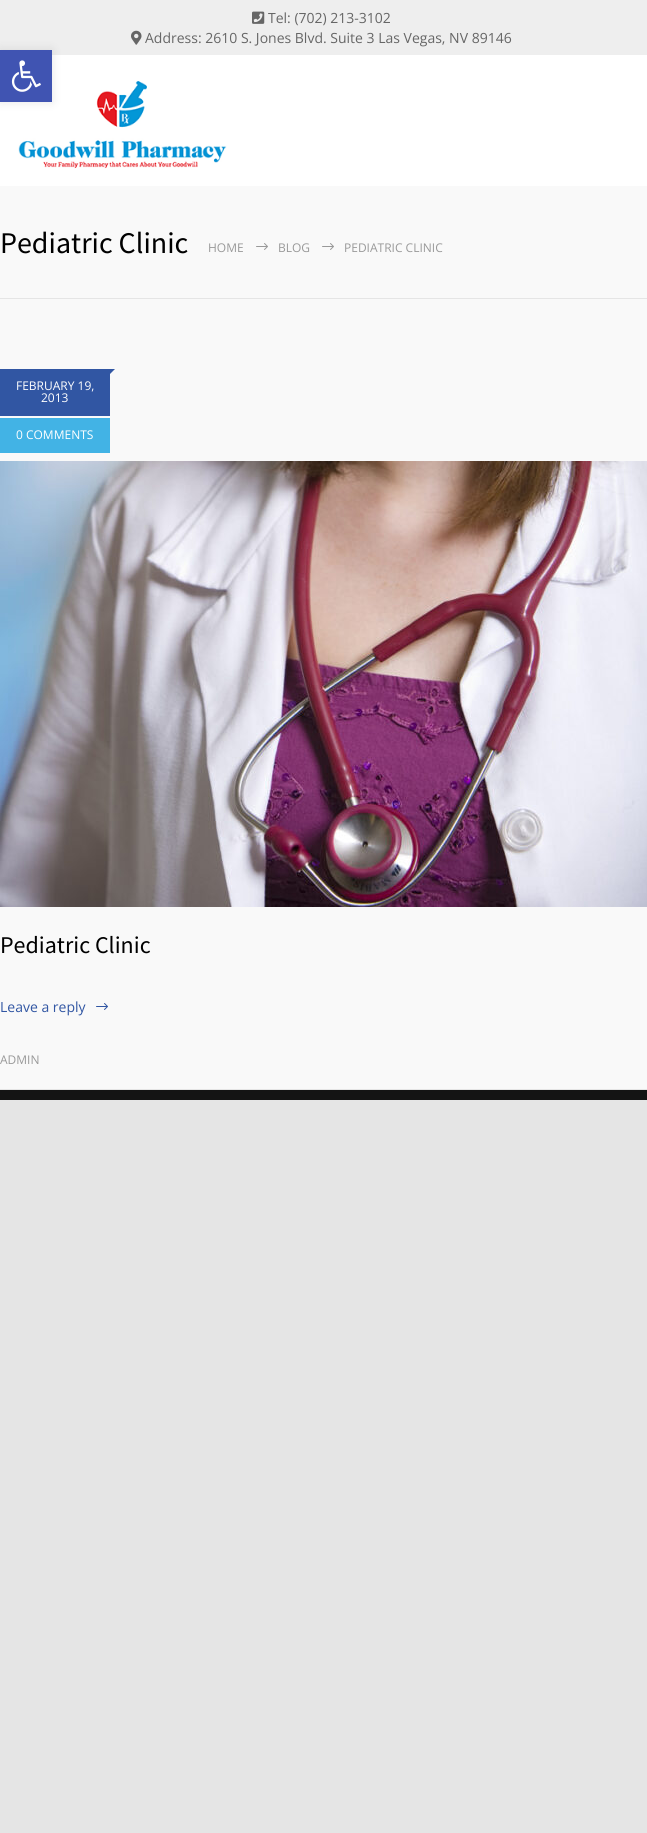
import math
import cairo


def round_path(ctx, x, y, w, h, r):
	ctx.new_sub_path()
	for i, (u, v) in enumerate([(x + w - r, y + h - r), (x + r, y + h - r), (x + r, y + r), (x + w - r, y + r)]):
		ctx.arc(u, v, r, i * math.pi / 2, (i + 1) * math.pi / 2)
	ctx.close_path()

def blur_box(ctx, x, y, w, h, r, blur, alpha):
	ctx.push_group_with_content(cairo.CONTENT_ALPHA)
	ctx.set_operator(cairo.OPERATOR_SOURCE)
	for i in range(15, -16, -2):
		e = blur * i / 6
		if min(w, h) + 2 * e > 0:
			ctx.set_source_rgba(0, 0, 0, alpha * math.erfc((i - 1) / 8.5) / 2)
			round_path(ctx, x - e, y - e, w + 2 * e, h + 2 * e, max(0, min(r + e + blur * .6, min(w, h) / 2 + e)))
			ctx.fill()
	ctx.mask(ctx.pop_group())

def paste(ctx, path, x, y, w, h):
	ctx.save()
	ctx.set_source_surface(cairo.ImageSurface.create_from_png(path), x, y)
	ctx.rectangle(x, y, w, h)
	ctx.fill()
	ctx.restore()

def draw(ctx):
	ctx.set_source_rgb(0.898, 0.898, 0.898)
	ctx.paint()
	ctx.set_source_rgb(0.933, 0.933, 0.933)
	ctx.rectangle(0, 0, 647, 55)
	ctx.fill()
	paste(ctx, 'media/1.png', 252, 11, 13, 13)
	ctx.select_font_face('Open Sans')
	ctx.set_font_size(14)
	ctx.set_source_rgb(0.4, 0.4, 0.4)
	ctx.move_to(268, 23)
	ctx.show_text('Tel: (702) 213-3102')
	paste(ctx, 'media/2.png', 131, 30, 11, 15)
	ctx.move_to(145, 43)
	ctx.show_text('Address: 2610 S. Jones Blvd. Suite 3 Las Vegas, NV 89146')
	ctx.set_source_rgb(1, 1, 1)
	ctx.rectangle(0, 55, 647, 131)
	ctx.fill()
	paste(ctx, 'media/4.png', 18, 81, 209, 88)
	ctx.set_source_rgb(0, 0, 0)
	blur_box(ctx, 0, 50, 52, 52, 0, 5, 0.1)
	ctx.set_source_rgb(0.251, 0.329, 0.698)
	ctx.rectangle(0, 50, 52, 52)
	ctx.fill()
	paste(ctx, 'media/3.png', 11, 60, 30, 32)
	ctx.set_source_rgb(0.973, 0.973, 0.973)
	ctx.rectangle(0, 186, 647, 903)
	ctx.fill()
	ctx.set_source_rgb(0.898, 0.898, 0.898)
	ctx.rectangle(0, 298, 647, 1)
	ctx.fill()
	ctx.select_font_face('Source Sans Pro')
	ctx.set_font_size(30)
	ctx.set_source_rgb(0, 0, 0)
	ctx.move_to(0, 253)
	ctx.show_text('Pediatric Clinic')
	ctx.select_font_face('Open Sans')
	ctx.set_font_size(12)
	ctx.set_source_rgb(0.6, 0.6, 0.6)
	ctx.move_to(208, 252)
	ctx.show_text('HOME')
	paste(ctx, 'media/5.png', 256, 243, 12, 7)
	ctx.move_to(278, 252)
	ctx.show_text('BLOG')
	paste(ctx, 'media/5.png', 322, 243, 12, 7)
	ctx.move_to(344, 252)
	ctx.show_text('PEDIATRIC CLINIC')
	ctx.set_source_rgb(0.192, 0.337, 0.639)
	ctx.new_path()
	ctx.move_to(110, 369)
	ctx.line_to(115, 369)
	ctx.line_to(110, 374)
	ctx.close_path()
	ctx.fill()
	ctx.rectangle(0, 369, 110, 47)
	ctx.fill()
	ctx.set_source_rgb(1, 1, 1)
	ctx.move_to(16, 390)
	ctx.show_text('FEBRUARY 19,')
	ctx.move_to(41, 402)
	ctx.show_text('2013')
	ctx.set_source_rgb(0.259, 0.702, 0.898)
	ctx.rectangle(0, 418, 110, 35)
	ctx.fill()
	ctx.set_source_rgb(1, 1, 1)
	ctx.move_to(16, 439)
	ctx.show_text('0 COMMENTS')
	paste(ctx, 'media/6.png', 0, 461, 647, 446)
	ctx.select_font_face('Source Sans Pro')
	ctx.set_font_size(24)
	ctx.set_source_rgb(0, 0, 0)
	ctx.move_to(0, 953)
	ctx.show_text('Pediatric Clinic')
	ctx.select_font_face('Open Sans')
	ctx.set_font_size(14)
	ctx.set_source_rgb(0.192, 0.337, 0.639)
	ctx.move_to(0, 1012)
	ctx.show_text('Leave a reply')
	paste(ctx, 'media/7.png', 96, 1003, 12, 7)
	ctx.set_font_size(12)
	ctx.set_source_rgb(0.6, 0.6, 0.6)
	ctx.move_to(0, 1064)
	ctx.show_text('ADMIN')
	ctx.set_source_rgb(0.082, 0.082, 0.082)
	ctx.rectangle(0, 1090, 647, 10)
	ctx.fill()


surface = cairo.ImageSurface(cairo.FORMAT_RGB24, 647, 1833)
ctx = cairo.Context(surface)
options = cairo.FontOptions()
options.set_hint_metrics(cairo.HINT_METRICS_OFF)
options.set_hint_style(cairo.HINT_STYLE_NONE)
ctx.set_font_options(options)
ctx.set_miter_limit(4)
draw(ctx)
surface.write_to_png('image.png')
